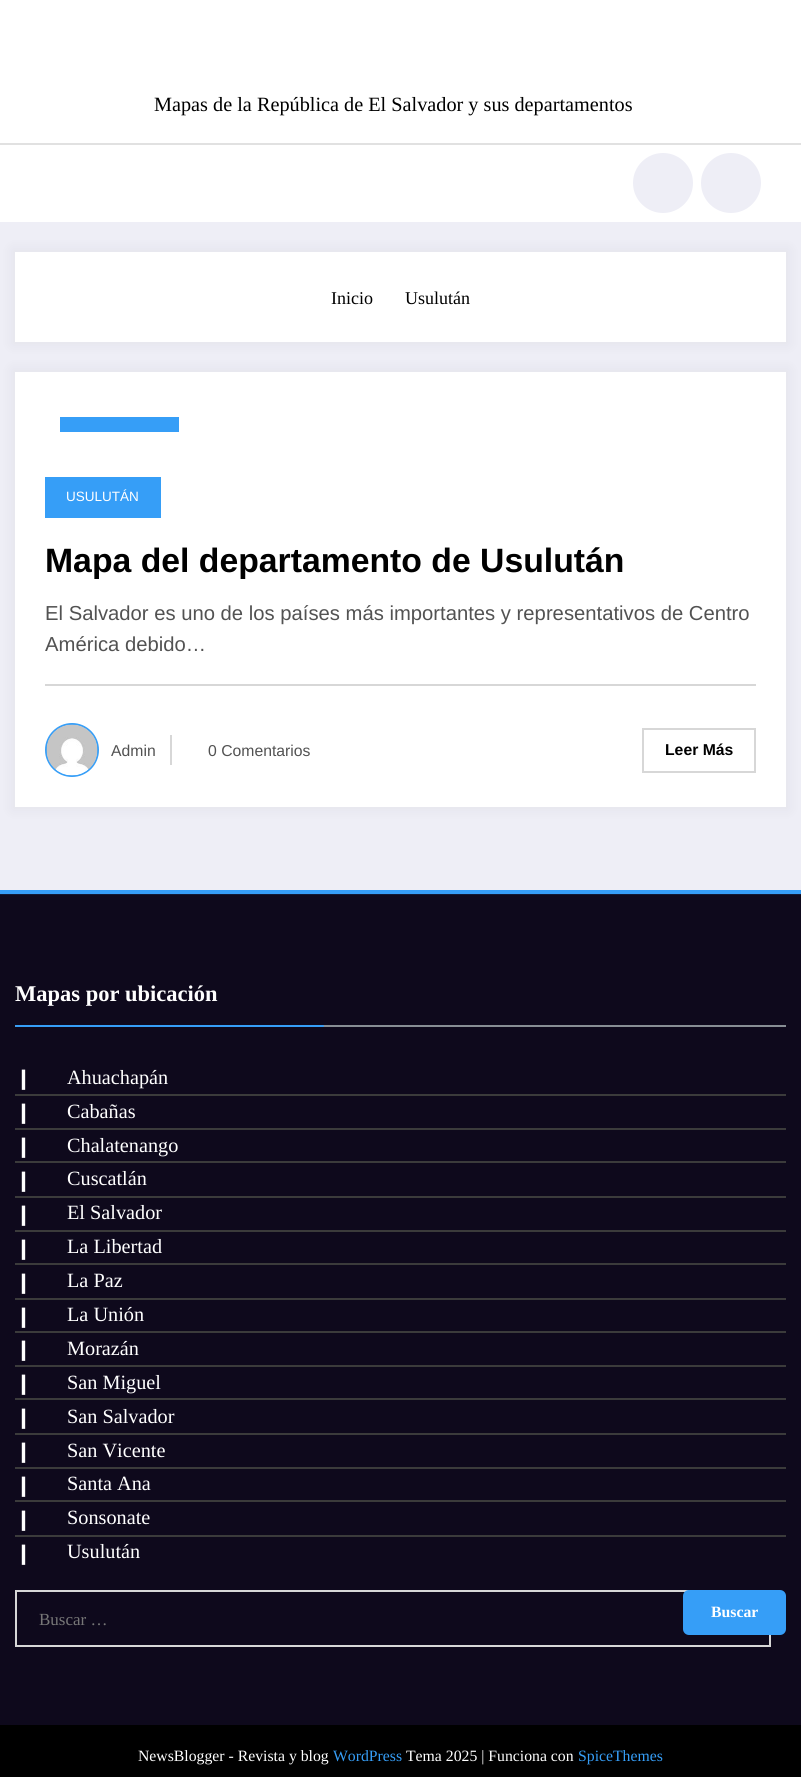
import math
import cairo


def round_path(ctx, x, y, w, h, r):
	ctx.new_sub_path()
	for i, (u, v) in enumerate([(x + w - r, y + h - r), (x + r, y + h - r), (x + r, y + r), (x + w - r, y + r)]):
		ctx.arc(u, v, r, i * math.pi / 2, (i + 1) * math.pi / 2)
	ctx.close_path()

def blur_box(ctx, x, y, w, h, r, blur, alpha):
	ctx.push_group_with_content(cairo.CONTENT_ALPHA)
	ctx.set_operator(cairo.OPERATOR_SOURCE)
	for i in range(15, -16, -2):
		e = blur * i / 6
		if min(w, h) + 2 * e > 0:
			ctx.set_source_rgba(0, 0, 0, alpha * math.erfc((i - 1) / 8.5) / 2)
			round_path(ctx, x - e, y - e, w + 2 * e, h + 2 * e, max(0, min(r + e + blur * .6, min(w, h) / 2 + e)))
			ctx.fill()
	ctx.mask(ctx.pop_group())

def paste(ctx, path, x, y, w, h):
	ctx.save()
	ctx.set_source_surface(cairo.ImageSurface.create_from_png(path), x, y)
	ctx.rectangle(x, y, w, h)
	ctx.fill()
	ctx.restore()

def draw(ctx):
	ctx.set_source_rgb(0.933, 0.933, 0.961)
	ctx.paint()
	ctx.set_source_rgb(1, 1, 1)
	ctx.rectangle(0, 0, 801, 222)
	ctx.fill()
	ctx.select_font_face('Liberation Serif')
	ctx.set_font_size(20.25)
	ctx.set_source_rgb(0, 0, 0)
	ctx.move_to(154, 111)
	ctx.show_text('Mapas de la República de El Salvador y sus departamentos')
	ctx.set_source_rgb(0.882, 0.882, 0.882)
	ctx.rectangle(0, 143, 801, 2)
	ctx.fill()
	ctx.set_source_rgb(0.933, 0.933, 0.961)
	ctx.arc(663, 183, 30, 0, 2 * math.pi)
	ctx.fill()
	ctx.arc(731, 183, 30, 0, 2 * math.pi)
	ctx.fill()
	ctx.set_source_rgb(0.09, 0.09, 0.137)
	blur_box(ctx, 12, 249, 777, 96, 0, 6, 0.05)
	ctx.set_source_rgb(1, 1, 1)
	ctx.rectangle(15, 252, 771, 90)
	ctx.fill()
	ctx.set_font_size(18)
	ctx.set_source_rgb(0, 0, 0)
	ctx.move_to(331, 304)
	ctx.show_text('Inicio')
	ctx.move_to(405, 304)
	ctx.show_text('Usulután')
	ctx.set_source_rgb(0.09, 0.09, 0.137)
	blur_box(ctx, 12, 369, 777, 441, 0, 6, 0.05)
	ctx.set_source_rgb(1, 1, 1)
	ctx.rectangle(15, 372, 771, 435)
	ctx.fill()
	ctx.set_source_rgb(0.212, 0.62, 0.965)
	ctx.rectangle(60, 417, 119, 15)
	ctx.rectangle(45, 477, 116, 41)
	ctx.fill()
	ctx.select_font_face('Liberation Sans')
	ctx.set_font_size(13.5)
	ctx.set_source_rgb(1, 1, 1)
	ctx.move_to(66, 501)
	ctx.show_text('USULUTÁN')
	ctx.select_font_face('Liberation Sans', cairo.FONT_SLANT_NORMAL, cairo.FONT_WEIGHT_BOLD)
	ctx.set_font_size(33.75)
	ctx.set_source_rgb(0, 0, 0)
	ctx.move_to(45, 572)
	ctx.show_text('Mapa del departamento de Usulután')
	ctx.set_source_rgb(0.843, 0.843, 0.843)
	ctx.rectangle(45, 684, 711, 2)
	ctx.fill()
	ctx.select_font_face('Liberation Sans')
	ctx.set_font_size(20.25)
	ctx.set_source_rgb(0.322, 0.322, 0.322)
	ctx.move_to(45, 620)
	ctx.show_text('El Salvador es uno de los países más importantes y representativos de Centro')
	ctx.move_to(45, 651)
	ctx.show_text('América debido…')
	ctx.new_path()
	ctx.arc(72, 750, 26, 0, 2 * math.pi)
	ctx.set_source_rgb(0.212, 0.62, 0.965)
	ctx.stroke()
	paste(ctx, 'media/1.png', 46, 724, 52, 52)
	ctx.set_font_size(15.75)
	ctx.set_source_rgb(0.322, 0.322, 0.322)
	ctx.move_to(111, 756)
	ctx.show_text('Admin')
	ctx.set_source_rgb(0.843, 0.843, 0.843)
	ctx.rectangle(170, 735, 2, 30)
	ctx.fill()
	ctx.set_source_rgb(0.322, 0.322, 0.322)
	ctx.move_to(208, 756)
	ctx.show_text('0 Comentarios')
	ctx.rectangle(643, 729, 112, 43)
	ctx.set_source_rgb(0.843, 0.843, 0.843)
	ctx.stroke()
	ctx.select_font_face('Liberation Sans', cairo.FONT_SLANT_NORMAL, cairo.FONT_WEIGHT_BOLD)
	ctx.set_source_rgb(0, 0, 0)
	ctx.move_to(665, 755)
	ctx.show_text('Leer Más')
	ctx.set_source_rgb(0.055, 0.039, 0.11)
	ctx.rectangle(0, 895, 801, 830)
	ctx.fill()
	ctx.set_source_rgb(0.212, 0.62, 0.965)
	ctx.rectangle(0, 890, 801, 4)
	ctx.fill()
	ctx.set_source_rgb(0.075, 0.102, 0.208)
	ctx.rectangle(0, 894, 801, 1)
	ctx.fill()
	ctx.set_source_rgb(0.529, 0.557, 0.58)
	ctx.rectangle(15, 1025, 771, 2)
	ctx.fill()
	ctx.select_font_face('Liberation Serif', cairo.FONT_SLANT_NORMAL, cairo.FONT_WEIGHT_BOLD)
	ctx.set_font_size(22.5)
	ctx.set_source_rgb(1, 1, 1)
	ctx.move_to(15, 1001)
	ctx.show_text('Mapas por ubicación')
	ctx.set_source_rgb(0.212, 0.62, 0.965)
	round_path(ctx, 15, 1025, 309, 2, 1)
	ctx.fill()
	ctx.set_source_rgb(0.231, 0.231, 0.231)
	ctx.rectangle(15, 1094, 771, 2)
	ctx.fill()
	ctx.select_font_face('DejaVu Sans')
	ctx.set_font_size(20.25)
	ctx.set_source_rgb(1, 1, 1)
	ctx.move_to(15, 1085)
	ctx.show_text('❙')
	ctx.select_font_face('Liberation Serif')
	ctx.move_to(67, 1084)
	ctx.show_text('Ahuachapán')
	ctx.set_source_rgb(0.231, 0.231, 0.231)
	ctx.rectangle(15, 1128, 771, 2)
	ctx.fill()
	ctx.select_font_face('DejaVu Sans')
	ctx.set_source_rgb(1, 1, 1)
	ctx.move_to(15, 1119)
	ctx.show_text('❙')
	ctx.select_font_face('Liberation Serif')
	ctx.move_to(67, 1118)
	ctx.show_text('Cabañas')
	ctx.set_source_rgb(0.231, 0.231, 0.231)
	ctx.rectangle(15, 1161, 771, 2)
	ctx.fill()
	ctx.select_font_face('DejaVu Sans')
	ctx.set_source_rgb(1, 1, 1)
	ctx.move_to(15, 1153)
	ctx.show_text('❙')
	ctx.select_font_face('Liberation Serif')
	ctx.move_to(67, 1152)
	ctx.show_text('Chalatenango')
	ctx.set_source_rgb(0.231, 0.231, 0.231)
	ctx.rectangle(15, 1196, 771, 2)
	ctx.fill()
	ctx.select_font_face('DejaVu Sans')
	ctx.set_source_rgb(1, 1, 1)
	ctx.move_to(15, 1187)
	ctx.show_text('❙')
	ctx.select_font_face('Liberation Serif')
	ctx.move_to(67, 1185)
	ctx.show_text('Cuscatlán')
	ctx.set_source_rgb(0.231, 0.231, 0.231)
	ctx.rectangle(15, 1230, 771, 2)
	ctx.fill()
	ctx.select_font_face('DejaVu Sans')
	ctx.set_source_rgb(1, 1, 1)
	ctx.move_to(15, 1221)
	ctx.show_text('❙')
	ctx.select_font_face('Liberation Serif')
	ctx.move_to(67, 1219)
	ctx.show_text('El Salvador')
	ctx.set_source_rgb(0.231, 0.231, 0.231)
	ctx.rectangle(15, 1263, 771, 2)
	ctx.fill()
	ctx.select_font_face('DejaVu Sans')
	ctx.set_source_rgb(1, 1, 1)
	ctx.move_to(15, 1255)
	ctx.show_text('❙')
	ctx.select_font_face('Liberation Serif')
	ctx.move_to(67, 1253)
	ctx.show_text('La Libertad')
	ctx.set_source_rgb(0.231, 0.231, 0.231)
	ctx.rectangle(15, 1298, 771, 2)
	ctx.fill()
	ctx.select_font_face('DejaVu Sans')
	ctx.set_source_rgb(1, 1, 1)
	ctx.move_to(15, 1289)
	ctx.show_text('❙')
	ctx.select_font_face('Liberation Serif')
	ctx.move_to(67, 1287)
	ctx.show_text('La Paz')
	ctx.set_source_rgb(0.231, 0.231, 0.231)
	ctx.rectangle(15, 1331, 771, 2)
	ctx.fill()
	ctx.select_font_face('DejaVu Sans')
	ctx.set_source_rgb(1, 1, 1)
	ctx.move_to(15, 1323)
	ctx.show_text('❙')
	ctx.select_font_face('Liberation Serif')
	ctx.move_to(67, 1321)
	ctx.show_text('La Unión')
	ctx.set_source_rgb(0.231, 0.231, 0.231)
	ctx.rectangle(15, 1365, 771, 2)
	ctx.fill()
	ctx.select_font_face('DejaVu Sans')
	ctx.set_source_rgb(1, 1, 1)
	ctx.move_to(15, 1356)
	ctx.show_text('❙')
	ctx.select_font_face('Liberation Serif')
	ctx.move_to(67, 1355)
	ctx.show_text('Morazán')
	ctx.set_source_rgb(0.231, 0.231, 0.231)
	ctx.rectangle(15, 1398, 771, 2)
	ctx.fill()
	ctx.select_font_face('DejaVu Sans')
	ctx.set_source_rgb(1, 1, 1)
	ctx.move_to(15, 1390)
	ctx.show_text('❙')
	ctx.select_font_face('Liberation Serif')
	ctx.move_to(67, 1389)
	ctx.show_text('San Miguel')
	ctx.set_source_rgb(0.231, 0.231, 0.231)
	ctx.rectangle(15, 1433, 771, 2)
	ctx.fill()
	ctx.select_font_face('DejaVu Sans')
	ctx.set_source_rgb(1, 1, 1)
	ctx.move_to(15, 1424)
	ctx.show_text('❙')
	ctx.select_font_face('Liberation Serif')
	ctx.move_to(67, 1423)
	ctx.show_text('San Salvador')
	ctx.set_source_rgb(0.231, 0.231, 0.231)
	ctx.rectangle(15, 1467, 771, 2)
	ctx.fill()
	ctx.select_font_face('DejaVu Sans')
	ctx.set_source_rgb(1, 1, 1)
	ctx.move_to(15, 1458)
	ctx.show_text('❙')
	ctx.select_font_face('Liberation Serif')
	ctx.move_to(67, 1457)
	ctx.show_text('San Vicente')
	ctx.set_source_rgb(0.231, 0.231, 0.231)
	ctx.rectangle(15, 1500, 771, 2)
	ctx.fill()
	ctx.select_font_face('DejaVu Sans')
	ctx.set_source_rgb(1, 1, 1)
	ctx.move_to(15, 1492)
	ctx.show_text('❙')
	ctx.select_font_face('Liberation Serif')
	ctx.move_to(67, 1490)
	ctx.show_text('Santa Ana')
	ctx.set_source_rgb(0.231, 0.231, 0.231)
	ctx.rectangle(15, 1535, 771, 2)
	ctx.fill()
	ctx.select_font_face('DejaVu Sans')
	ctx.set_source_rgb(1, 1, 1)
	ctx.move_to(15, 1526)
	ctx.show_text('❙')
	ctx.select_font_face('Liberation Serif')
	ctx.move_to(67, 1524)
	ctx.show_text('Sonsonate')
	ctx.select_font_face('DejaVu Sans')
	ctx.move_to(15, 1560)
	ctx.show_text('❙')
	ctx.select_font_face('Liberation Serif')
	ctx.move_to(67, 1558)
	ctx.show_text('Usulután')
	ctx.rectangle(16, 1591, 754, 55)
	ctx.set_source_rgb(0.843, 0.843, 0.843)
	ctx.stroke()
	ctx.set_font_size(17)
	ctx.set_source_rgb(0.467, 0.467, 0.467)
	ctx.move_to(39, 1625)
	ctx.show_text('Buscar …')
	ctx.set_source_rgb(0.212, 0.62, 0.965)
	round_path(ctx, 683, 1590, 103, 45, 6)
	ctx.fill()
	ctx.select_font_face('Liberation Serif', cairo.FONT_SLANT_NORMAL, cairo.FONT_WEIGHT_BOLD)
	ctx.set_font_size(15.75)
	ctx.set_source_rgb(1, 1, 1)
	ctx.move_to(711, 1617)
	ctx.show_text('Buscar')
	ctx.set_source_rgb(0, 0, 0)
	ctx.rectangle(0, 1725, 801, 52)
	ctx.fill()
	ctx.select_font_face('Liberation Serif')
	ctx.set_source_rgb(1, 1, 1)
	ctx.move_to(138, 1761)
	ctx.show_text('NewsBlogger - Revista y blog')
	ctx.set_source_rgb(0.212, 0.62, 0.965)
	ctx.move_to(333, 1761)
	ctx.show_text('WordPress')
	ctx.set_source_rgb(1, 1, 1)
	ctx.move_to(406, 1761)
	ctx.show_text('Tema 2025 | Funciona con')
	ctx.set_source_rgb(0.212, 0.62, 0.965)
	ctx.move_to(578, 1761)
	ctx.show_text('SpiceThemes')


surface = cairo.ImageSurface(cairo.FORMAT_RGB24, 801, 1777)
ctx = cairo.Context(surface)
options = cairo.FontOptions()
options.set_hint_metrics(cairo.HINT_METRICS_OFF)
options.set_hint_style(cairo.HINT_STYLE_NONE)
ctx.set_font_options(options)
ctx.set_miter_limit(4)
draw(ctx)
surface.write_to_png('image.png')
